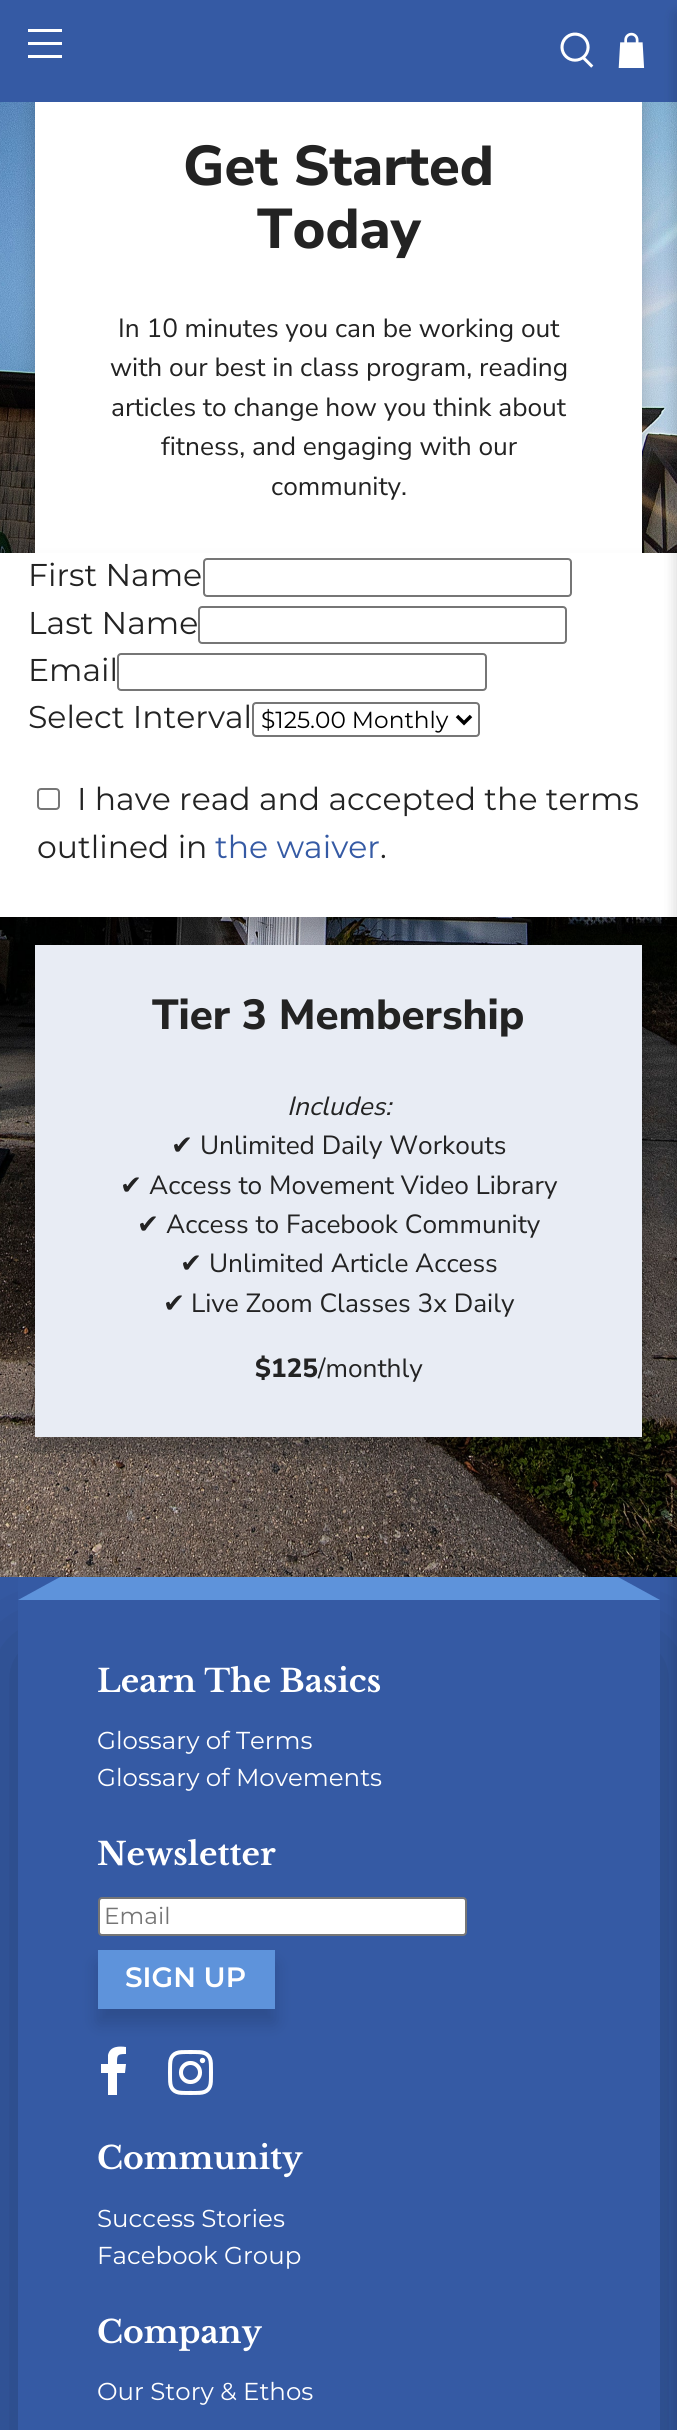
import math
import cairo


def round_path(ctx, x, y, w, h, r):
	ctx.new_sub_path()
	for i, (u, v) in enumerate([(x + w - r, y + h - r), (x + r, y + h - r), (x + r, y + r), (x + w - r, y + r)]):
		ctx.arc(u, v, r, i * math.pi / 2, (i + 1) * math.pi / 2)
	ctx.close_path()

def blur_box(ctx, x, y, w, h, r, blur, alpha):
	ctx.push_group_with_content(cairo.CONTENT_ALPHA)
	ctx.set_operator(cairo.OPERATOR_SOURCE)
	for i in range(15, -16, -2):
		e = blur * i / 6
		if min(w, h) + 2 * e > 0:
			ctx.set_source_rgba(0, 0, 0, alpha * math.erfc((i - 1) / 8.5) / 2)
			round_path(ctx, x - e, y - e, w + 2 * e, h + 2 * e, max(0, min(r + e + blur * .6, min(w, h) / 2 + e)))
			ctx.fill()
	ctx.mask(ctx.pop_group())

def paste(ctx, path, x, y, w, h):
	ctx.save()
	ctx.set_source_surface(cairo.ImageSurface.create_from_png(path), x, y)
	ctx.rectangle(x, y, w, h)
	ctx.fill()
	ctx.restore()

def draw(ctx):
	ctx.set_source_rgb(1, 1, 1)
	ctx.paint()
	paste(ctx, 'media/3.png', 0, 102, 677, 1475)
	ctx.set_source_rgb(0, 0, 0)
	blur_box(ctx, 35, 103, 607, 464, 0, 9, 0.2)
	ctx.set_source_rgb(0.208, 0.353, 0.643)
	ctx.rectangle(0, 0, 677, 102)
	ctx.fill()
	ctx.set_source_rgb(1, 1, 1)
	ctx.rectangle(28, 29, 34, 3)
	ctx.rectangle(28, 42, 34, 3)
	ctx.rectangle(28, 55, 34, 3)
	ctx.fill()
	paste(ctx, 'media/1.png', 560, 32, 34, 36)
	paste(ctx, 'media/2.png', 618, 32, 27, 36)
	ctx.rectangle(35, 102, 607, 451)
	ctx.fill()
	ctx.set_source_rgb(0, 0, 0)
	blur_box(ctx, 0, 567, 677, 364, 0, 9, 0.2)
	ctx.set_source_rgb(1, 1, 1)
	ctx.rectangle(0, 553, 677, 364)
	ctx.fill()
	ctx.set_source_rgb(0.208, 0.353, 0.643)
	ctx.rectangle(0, 1577, 677, 853)
	ctx.fill()
	ctx.set_source_rgb(0, 0, 0)
	blur_box(ctx, 18, 1647, 642, 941, 0, 52.5, 0.25)
	ctx.set_source_rgb(0.208, 0.353, 0.643)
	ctx.rectangle(18, 1577, 642, 853)
	ctx.fill()
	ctx.set_source_rgb(0.369, 0.576, 0.859)
	ctx.new_path()
	ctx.move_to(660, 1600)
	ctx.line_to(18, 1600)
	ctx.line_to(60, 1577)
	ctx.line_to(618, 1577)
	ctx.close_path()
	ctx.fill()
	ctx.set_source_rgb(0.039, 0.039, 0.039)
	blur_box(ctx, 677, 14, 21, 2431, 0, 7, 0.1)
	ctx.select_font_face('Nunito Sans ExtraBold')
	ctx.set_font_size(56)
	ctx.set_source_rgb(0.137, 0.137, 0.137)
	ctx.move_to(183, 185)
	ctx.show_text('Get Started')
	ctx.move_to(257, 248)
	ctx.show_text('Today')
	ctx.select_font_face('Nunito Sans')
	ctx.set_font_size(26.25)
	for x, y, s in [
		(118, 337, 'In 10 minutes you can be working out'),
		(110, 376, 'with our best in class program, reading'),
		(111, 416, 'articles to change how you think about'),
		(161, 455, 'fitness, and engaging with our'),
		(271, 495, 'community.'),
	]:
		ctx.move_to(x, y)
		ctx.show_text(s)
	ctx.select_font_face('Montserrat')
	ctx.set_font_size(31.5)
	ctx.move_to(28, 586)
	ctx.show_text('First Name')
	round_path(ctx, 204, 559, 367, 37, 3)
	ctx.set_source_rgb(0.463, 0.463, 0.463)
	ctx.stroke()
	ctx.set_source_rgb(0.137, 0.137, 0.137)
	ctx.move_to(28, 634)
	ctx.show_text('Last Name')
	round_path(ctx, 199, 607, 367, 36, 3)
	ctx.set_source_rgb(0.463, 0.463, 0.463)
	ctx.stroke()
	ctx.set_source_rgb(0.137, 0.137, 0.137)
	ctx.move_to(28, 681)
	ctx.show_text('Email')
	round_path(ctx, 118, 654, 368, 36, 3)
	ctx.set_source_rgb(0.463, 0.463, 0.463)
	ctx.stroke()
	ctx.set_source_rgb(0.137, 0.137, 0.137)
	ctx.move_to(28, 728)
	ctx.show_text('Select Interval')
	round_path(ctx, 253, 703, 226, 33, 3)
	ctx.set_source_rgb(0.463, 0.463, 0.463)
	ctx.stroke()
	ctx.new_path()
	ctx.move_to(457, 716)
	ctx.line_to(464, 723)
	ctx.line_to(471, 716)
	ctx.set_source_rgb(0, 0, 0)
	ctx.set_line_width(3.5)
	ctx.stroke()
	ctx.set_font_size(23.25)
	ctx.move_to(261, 728)
	ctx.show_text('$125.00 Monthly')
	round_path(ctx, 38, 789, 21, 20, 3)
	ctx.set_source_rgb(0.463, 0.463, 0.463)
	ctx.set_line_width(2)
	ctx.stroke()
	ctx.set_font_size(31.5)
	ctx.set_source_rgb(0.137, 0.137, 0.137)
	ctx.move_to(77, 810)
	ctx.show_text('I have read and accepted the terms')
	ctx.move_to(37, 858)
	ctx.show_text('outlined in')
	ctx.set_source_rgb(0.208, 0.353, 0.643)
	ctx.move_to(215, 858)
	ctx.show_text('the waiver')
	ctx.set_source_rgb(0.137, 0.137, 0.137)
	ctx.move_to(380, 858)
	ctx.show_text('.')
	ctx.set_source_rgb(0, 0, 0)
	blur_box(ctx, 35, 959, 607, 492, 0, 9, 0.2)
	ctx.set_source_rgb(0.91, 0.922, 0.957)
	ctx.rectangle(35, 945, 607, 492)
	ctx.fill()
	ctx.select_font_face('Nunito Sans ExtraBold')
	ctx.set_font_size(42)
	ctx.set_source_rgb(0.137, 0.137, 0.137)
	ctx.move_to(152, 1029)
	ctx.show_text('Tier 3 Membership')
	ctx.select_font_face('Nunito Sans', cairo.FONT_SLANT_ITALIC)
	ctx.set_font_size(26.25)
	ctx.move_to(287, 1115)
	ctx.show_text('Includes:')
	ctx.select_font_face('DejaVu Sans')
	ctx.move_to(171, 1154)
	ctx.show_text('✔')
	ctx.select_font_face('Nunito Sans')
	ctx.move_to(200, 1154)
	ctx.show_text('Unlimited Daily Workouts')
	ctx.select_font_face('DejaVu Sans')
	ctx.move_to(120, 1194)
	ctx.show_text('✔')
	ctx.select_font_face('Nunito Sans')
	ctx.move_to(149, 1194)
	ctx.show_text('Access to Movement Video Library')
	ctx.select_font_face('DejaVu Sans')
	ctx.move_to(137, 1233)
	ctx.show_text('✔')
	ctx.select_font_face('Nunito Sans')
	ctx.move_to(166, 1233)
	ctx.show_text('Access to Facebook Community')
	ctx.select_font_face('DejaVu Sans')
	ctx.move_to(180, 1272)
	ctx.show_text('✔')
	ctx.select_font_face('Nunito Sans')
	ctx.move_to(209, 1272)
	ctx.show_text('Unlimited Article Access')
	ctx.select_font_face('DejaVu Sans')
	ctx.move_to(163, 1312)
	ctx.show_text('✔')
	ctx.select_font_face('Nunito Sans')
	ctx.move_to(191, 1312)
	ctx.show_text('Live Zoom Classes 3x Daily')
	ctx.select_font_face('Nunito Sans ExtraBold')
	ctx.move_to(255, 1377)
	ctx.show_text('$125')
	ctx.select_font_face('Nunito Sans')
	ctx.move_to(318, 1377)
	ctx.show_text('/monthly')
	ctx.set_source_rgb(0.039, 0.039, 0.039)
	blur_box(ctx, 677, 14, 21, 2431, 0, 7, 0.1)
	ctx.select_font_face('Libre Baskerville', cairo.FONT_SLANT_NORMAL, cairo.FONT_WEIGHT_BOLD)
	ctx.set_font_size(31.5)
	ctx.set_source_rgb(1, 1, 1)
	ctx.move_to(97, 1692)
	ctx.show_text('Learn The Basics')
	ctx.select_font_face('Montserrat')
	ctx.set_font_size(24.5)
	ctx.move_to(97, 1749)
	ctx.show_text('Glossary of Terms')
	ctx.move_to(97, 1786)
	ctx.show_text('Glossary of Movements')
	ctx.select_font_face('Libre Baskerville', cairo.FONT_SLANT_NORMAL, cairo.FONT_WEIGHT_BOLD)
	ctx.set_font_size(31.5)
	ctx.move_to(97, 1865)
	ctx.show_text('Newsletter')
	round_path(ctx, 99, 1898, 367, 37, 3)
	ctx.fill_preserve()
	ctx.set_source_rgb(0.463, 0.463, 0.463)
	ctx.stroke()
	ctx.select_font_face('Montserrat')
	ctx.set_font_size(23.25)
	ctx.set_source_rgb(0.459, 0.459, 0.459)
	ctx.move_to(104, 1924)
	ctx.show_text('Email')
	ctx.set_source_rgb(1, 1, 1)
	ctx.new_path()
	ctx.move_to(126, 2047)
	ctx.line_to(126, 2054)
	ctx.curve_to(117, 2054, 117, 2055, 117, 2064)
	ctx.line_to(126, 2064)
	ctx.line_to(125, 2073)
	ctx.line_to(117, 2073)
	ctx.line_to(117, 2095)
	ctx.line_to(108, 2095)
	ctx.line_to(108, 2073)
	ctx.line_to(101, 2073)
	ctx.line_to(101, 2064)
	ctx.line_to(108, 2064)
	ctx.line_to(108, 2055)
	ctx.curve_to(110, 2046, 119, 2046, 126, 2047)
	ctx.close_path()
	ctx.fill()
	paste(ctx, 'media/4.png', 168, 2050, 45, 45)
	ctx.set_source_rgb(0, 0, 0)
	blur_box(ctx, 98, 1964, 177, 59, 0, 9, 0.15)
	ctx.set_source_rgb(0.369, 0.576, 0.859)
	ctx.rectangle(98, 1950, 177, 59)
	ctx.fill()
	ctx.select_font_face('Montserrat SemiBold')
	ctx.set_font_size(28)
	ctx.set_source_rgb(1, 1, 1)
	ctx.move_to(125, 1987)
	ctx.show_text('SIGN UP')
	ctx.select_font_face('Libre Baskerville', cairo.FONT_SLANT_NORMAL, cairo.FONT_WEIGHT_BOLD)
	ctx.set_font_size(31.5)
	ctx.move_to(97, 2169)
	ctx.show_text('Community')
	ctx.select_font_face('Montserrat')
	ctx.set_font_size(24.5)
	ctx.move_to(97, 2227)
	ctx.show_text('Success Stories')
	ctx.move_to(97, 2264)
	ctx.show_text('Facebook Group')
	ctx.select_font_face('Libre Baskerville', cairo.FONT_SLANT_NORMAL, cairo.FONT_WEIGHT_BOLD)
	ctx.set_font_size(31.5)
	ctx.move_to(97, 2343)
	ctx.show_text('Company')
	ctx.select_font_face('Montserrat')
	ctx.set_font_size(24.5)
	ctx.move_to(97, 2400)
	ctx.show_text('Our Story & Ethos')


surface = cairo.ImageSurface(cairo.FORMAT_RGB24, 677, 2430)
ctx = cairo.Context(surface)
options = cairo.FontOptions()
options.set_hint_metrics(cairo.HINT_METRICS_OFF)
options.set_hint_style(cairo.HINT_STYLE_NONE)
ctx.set_font_options(options)
ctx.set_miter_limit(4)
draw(ctx)
surface.write_to_png('image.png')
